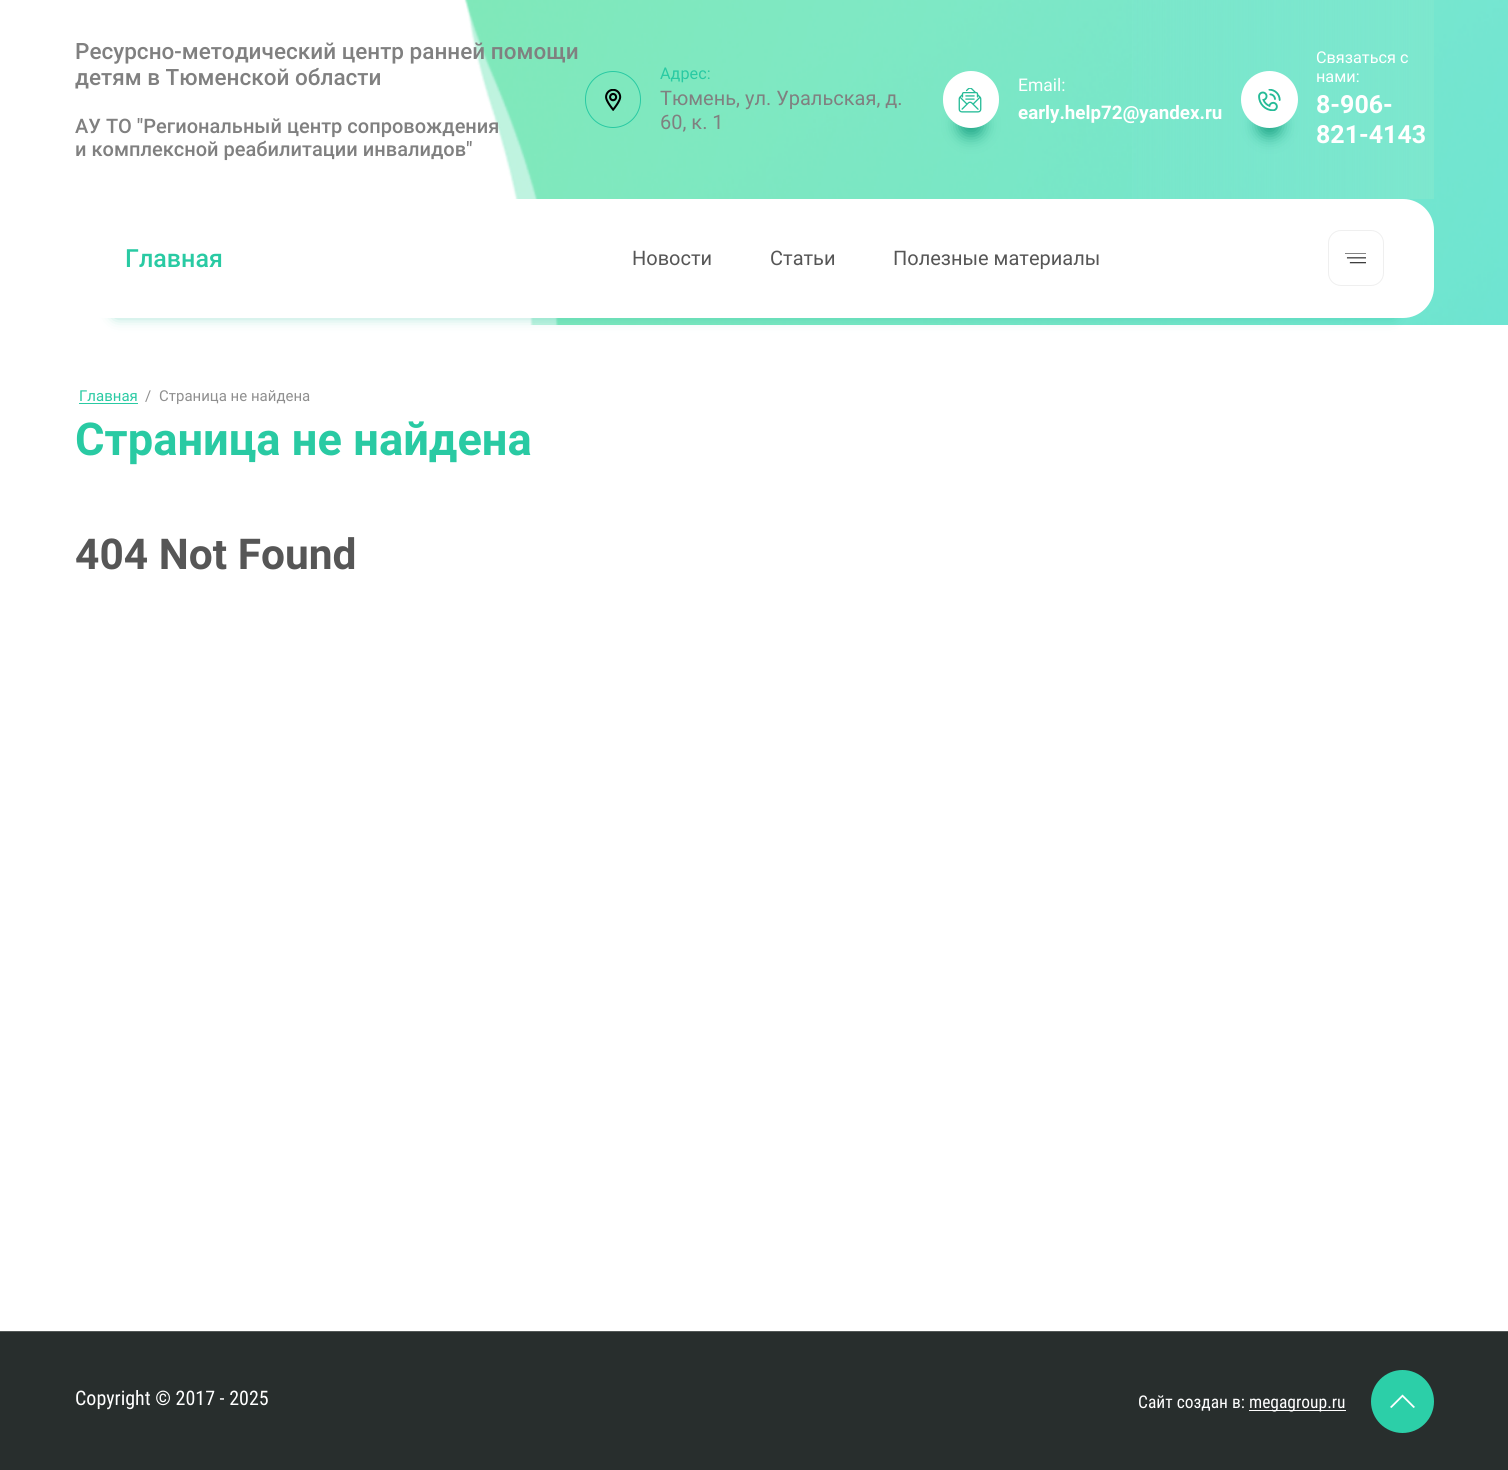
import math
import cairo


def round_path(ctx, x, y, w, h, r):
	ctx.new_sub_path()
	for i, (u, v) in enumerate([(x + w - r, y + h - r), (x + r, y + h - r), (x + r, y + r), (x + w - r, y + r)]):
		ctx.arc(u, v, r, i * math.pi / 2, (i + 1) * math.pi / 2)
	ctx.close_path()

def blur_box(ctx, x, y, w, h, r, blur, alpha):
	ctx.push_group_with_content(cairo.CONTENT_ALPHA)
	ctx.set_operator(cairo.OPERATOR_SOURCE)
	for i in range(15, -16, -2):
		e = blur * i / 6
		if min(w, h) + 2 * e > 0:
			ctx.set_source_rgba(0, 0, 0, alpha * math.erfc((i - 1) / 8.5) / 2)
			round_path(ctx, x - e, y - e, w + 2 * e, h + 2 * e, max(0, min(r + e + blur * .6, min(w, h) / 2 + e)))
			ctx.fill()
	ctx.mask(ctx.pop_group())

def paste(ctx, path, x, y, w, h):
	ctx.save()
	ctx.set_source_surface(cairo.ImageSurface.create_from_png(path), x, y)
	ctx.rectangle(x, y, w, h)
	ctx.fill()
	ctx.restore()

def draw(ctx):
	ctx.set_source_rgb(1, 1, 1)
	ctx.paint()
	paste(ctx, 'media/1.png', 464, 0, 1044, 325)
	gradient = cairo.LinearGradient(75, 99, 1434, 99)
	gradient.add_color_stop_rgba(0.69, 0.49, 0.906, 0.808, 0)
	gradient.add_color_stop_rgba(1, 0.49, 0.906, 0.808, 1)
	ctx.set_source(gradient)
	ctx.rectangle(1132, 0, 302, 199)
	ctx.fill()
	ctx.select_font_face('Roboto Medium')
	ctx.set_font_size(22.5)
	ctx.set_source_rgb(0.502, 0.502, 0.502)
	ctx.move_to(75, 59)
	ctx.show_text('Ресурсно-методический центр ранней помощи')
	ctx.move_to(75, 85)
	ctx.show_text('детям в Тюменской области')
	ctx.set_font_size(20)
	ctx.move_to(75, 133)
	ctx.show_text('АУ ТО "Региональный центр сопровождения')
	ctx.move_to(75, 156)
	ctx.show_text('и комплексной реабилитации инвалидов"')
	round_path(ctx, 585.5, 71.5, 55, 56, 27.5)
	ctx.set_source_rgb(0.161, 0.792, 0.639)
	ctx.set_line_width(1)
	ctx.stroke()
	paste(ctx, 'media/2.png', 605, 89, 17, 22)
	ctx.select_font_face('Roboto')
	ctx.set_font_size(16.25)
	ctx.move_to(660, 79)
	ctx.show_text('Адрес:')
	ctx.set_font_size(20)
	ctx.set_source_rgb(0.502, 0.502, 0.502)
	ctx.move_to(660, 105)
	ctx.show_text('Тюмень, ул. Уральская, д.')
	ctx.move_to(660, 129)
	ctx.show_text('60, к. 1')
	ctx.set_source_rgb(0.133, 0.655, 0.533)
	blur_box(ctx, 959, 113, 24, 23, 11.5, 7.5, 1)
	ctx.set_source_rgb(1, 1, 1)
	round_path(ctx, 943, 71, 56, 57, 28)
	ctx.fill()
	paste(ctx, 'media/3.png', 958, 88, 24, 25)
	ctx.set_font_size(17.5)
	ctx.move_to(1018, 91)
	ctx.show_text('Email:')
	ctx.select_font_face('Roboto', cairo.FONT_SLANT_NORMAL, cairo.FONT_WEIGHT_BOLD)
	ctx.set_font_size(18.75)
	ctx.move_to(1018, 119)
	ctx.show_text('early.help72@yandex.ru')
	ctx.set_source_rgb(0.133, 0.655, 0.533)
	blur_box(ctx, 1258, 113, 23, 23, 11.5, 7.5, 1)
	ctx.set_source_rgb(1, 1, 1)
	ctx.arc(1269.5, 99.5, 28.5, 0, 2 * math.pi)
	ctx.fill()
	paste(ctx, 'media/4.png', 1258, 89, 23, 22)
	ctx.select_font_face('Roboto')
	ctx.set_font_size(16.25)
	ctx.move_to(1316, 63)
	ctx.show_text('Связаться с')
	ctx.move_to(1316, 82)
	ctx.show_text('нами:')
	ctx.select_font_face('Roboto', cairo.FONT_SLANT_NORMAL, cairo.FONT_WEIGHT_BOLD)
	ctx.set_font_size(25)
	ctx.move_to(1316, 113)
	ctx.show_text('8-906-')
	ctx.move_to(1316, 143)
	ctx.show_text('821-4143')
	ctx.set_source_rgb(0.145, 0.733, 0.592)
	blur_box(ctx, 116, 278, 1277, 36, 0, 7.5, 0.7)
	ctx.set_source_rgb(1, 1, 1)
	round_path(ctx, 75, 199, 1359, 119, 31)
	ctx.fill()
	ctx.select_font_face('Roboto Medium')
	ctx.set_source_rgb(0.161, 0.792, 0.639)
	ctx.move_to(125, 267)
	ctx.show_text('Главная')
	ctx.select_font_face('Roboto')
	ctx.set_font_size(20)
	ctx.set_source_rgb(0.337, 0.337, 0.337)
	for x, y, s in [
		(632, 265, 'Новости'),
		(770, 265, 'Статьи'),
		(893, 265, 'Полезные материалы'),
	]:
		ctx.move_to(x, y)
		ctx.show_text(s)
	paste(ctx, 'media/5.png', 1345, 253, 21, 11)
	round_path(ctx, 1328.5, 230.5, 55, 55, 12.5)
	ctx.set_source_rgb(0.937, 0.937, 0.937)
	ctx.stroke()
	ctx.set_font_size(15)
	ctx.set_source_rgb(0.161, 0.792, 0.639)
	ctx.move_to(79, 401)
	ctx.show_text('Главная')
	ctx.rectangle(79, 403, 59, 1)
	ctx.fill()
	ctx.set_source_rgb(0.561, 0.561, 0.561)
	ctx.move_to(145, 401)
	ctx.show_text('/')
	ctx.move_to(159, 401)
	ctx.show_text('Страница не найдена')
	ctx.select_font_face('Roboto', cairo.FONT_SLANT_NORMAL, cairo.FONT_WEIGHT_BOLD)
	ctx.set_font_size(45.25)
	ctx.set_source_rgb(0.161, 0.792, 0.639)
	ctx.move_to(75, 455)
	ctx.show_text('Страница не найдена')
	ctx.set_font_size(42.5)
	ctx.set_source_rgb(0.337, 0.337, 0.337)
	ctx.move_to(75, 569)
	ctx.show_text('404 Not Found')
	ctx.set_source_rgb(0.157, 0.18, 0.176)
	ctx.rectangle(0, 1332, 1508, 138)
	ctx.fill()
	ctx.set_source_rgb(0.325, 0.345, 0.341)
	ctx.rectangle(0, 1331, 1508, 1)
	ctx.fill()
	ctx.select_font_face('Roboto Condensed')
	ctx.set_font_size(20)
	ctx.set_source_rgb(1, 1, 1)
	ctx.move_to(75, 1405)
	ctx.show_text('Copyright © 2017 - 2025')
	ctx.set_font_size(17.5)
	ctx.move_to(1138, 1408)
	ctx.show_text('Сайт создан в:')
	ctx.rectangle(1249, 1410, 97, 1)
	ctx.fill()
	ctx.move_to(1249, 1408)
	ctx.show_text('megagroup.ru')
	ctx.set_source_rgb(0.173, 0.812, 0.659)
	ctx.new_path()
	ctx.arc(1402.5, 1401.5, 31.5, 0, 2 * math.pi)
	ctx.fill()
	ctx.set_source_rgb(1, 1, 1)
	ctx.set_fill_rule(cairo.FILL_RULE_EVEN_ODD)
	ctx.new_path()
	ctx.move_to(1413.5, 1408)
	ctx.line_to(1402.5, 1397)
	ctx.line_to(1391.5, 1408)
	ctx.line_to(1390, 1407)
	ctx.line_to(1402.5, 1394.5)
	ctx.line_to(1415, 1407)
	ctx.close_path()
	ctx.fill()


surface = cairo.ImageSurface(cairo.FORMAT_RGB24, 1508, 1470)
ctx = cairo.Context(surface)
options = cairo.FontOptions()
options.set_hint_metrics(cairo.HINT_METRICS_OFF)
options.set_hint_style(cairo.HINT_STYLE_NONE)
ctx.set_font_options(options)
ctx.set_miter_limit(4)
draw(ctx)
surface.write_to_png('image.png')
